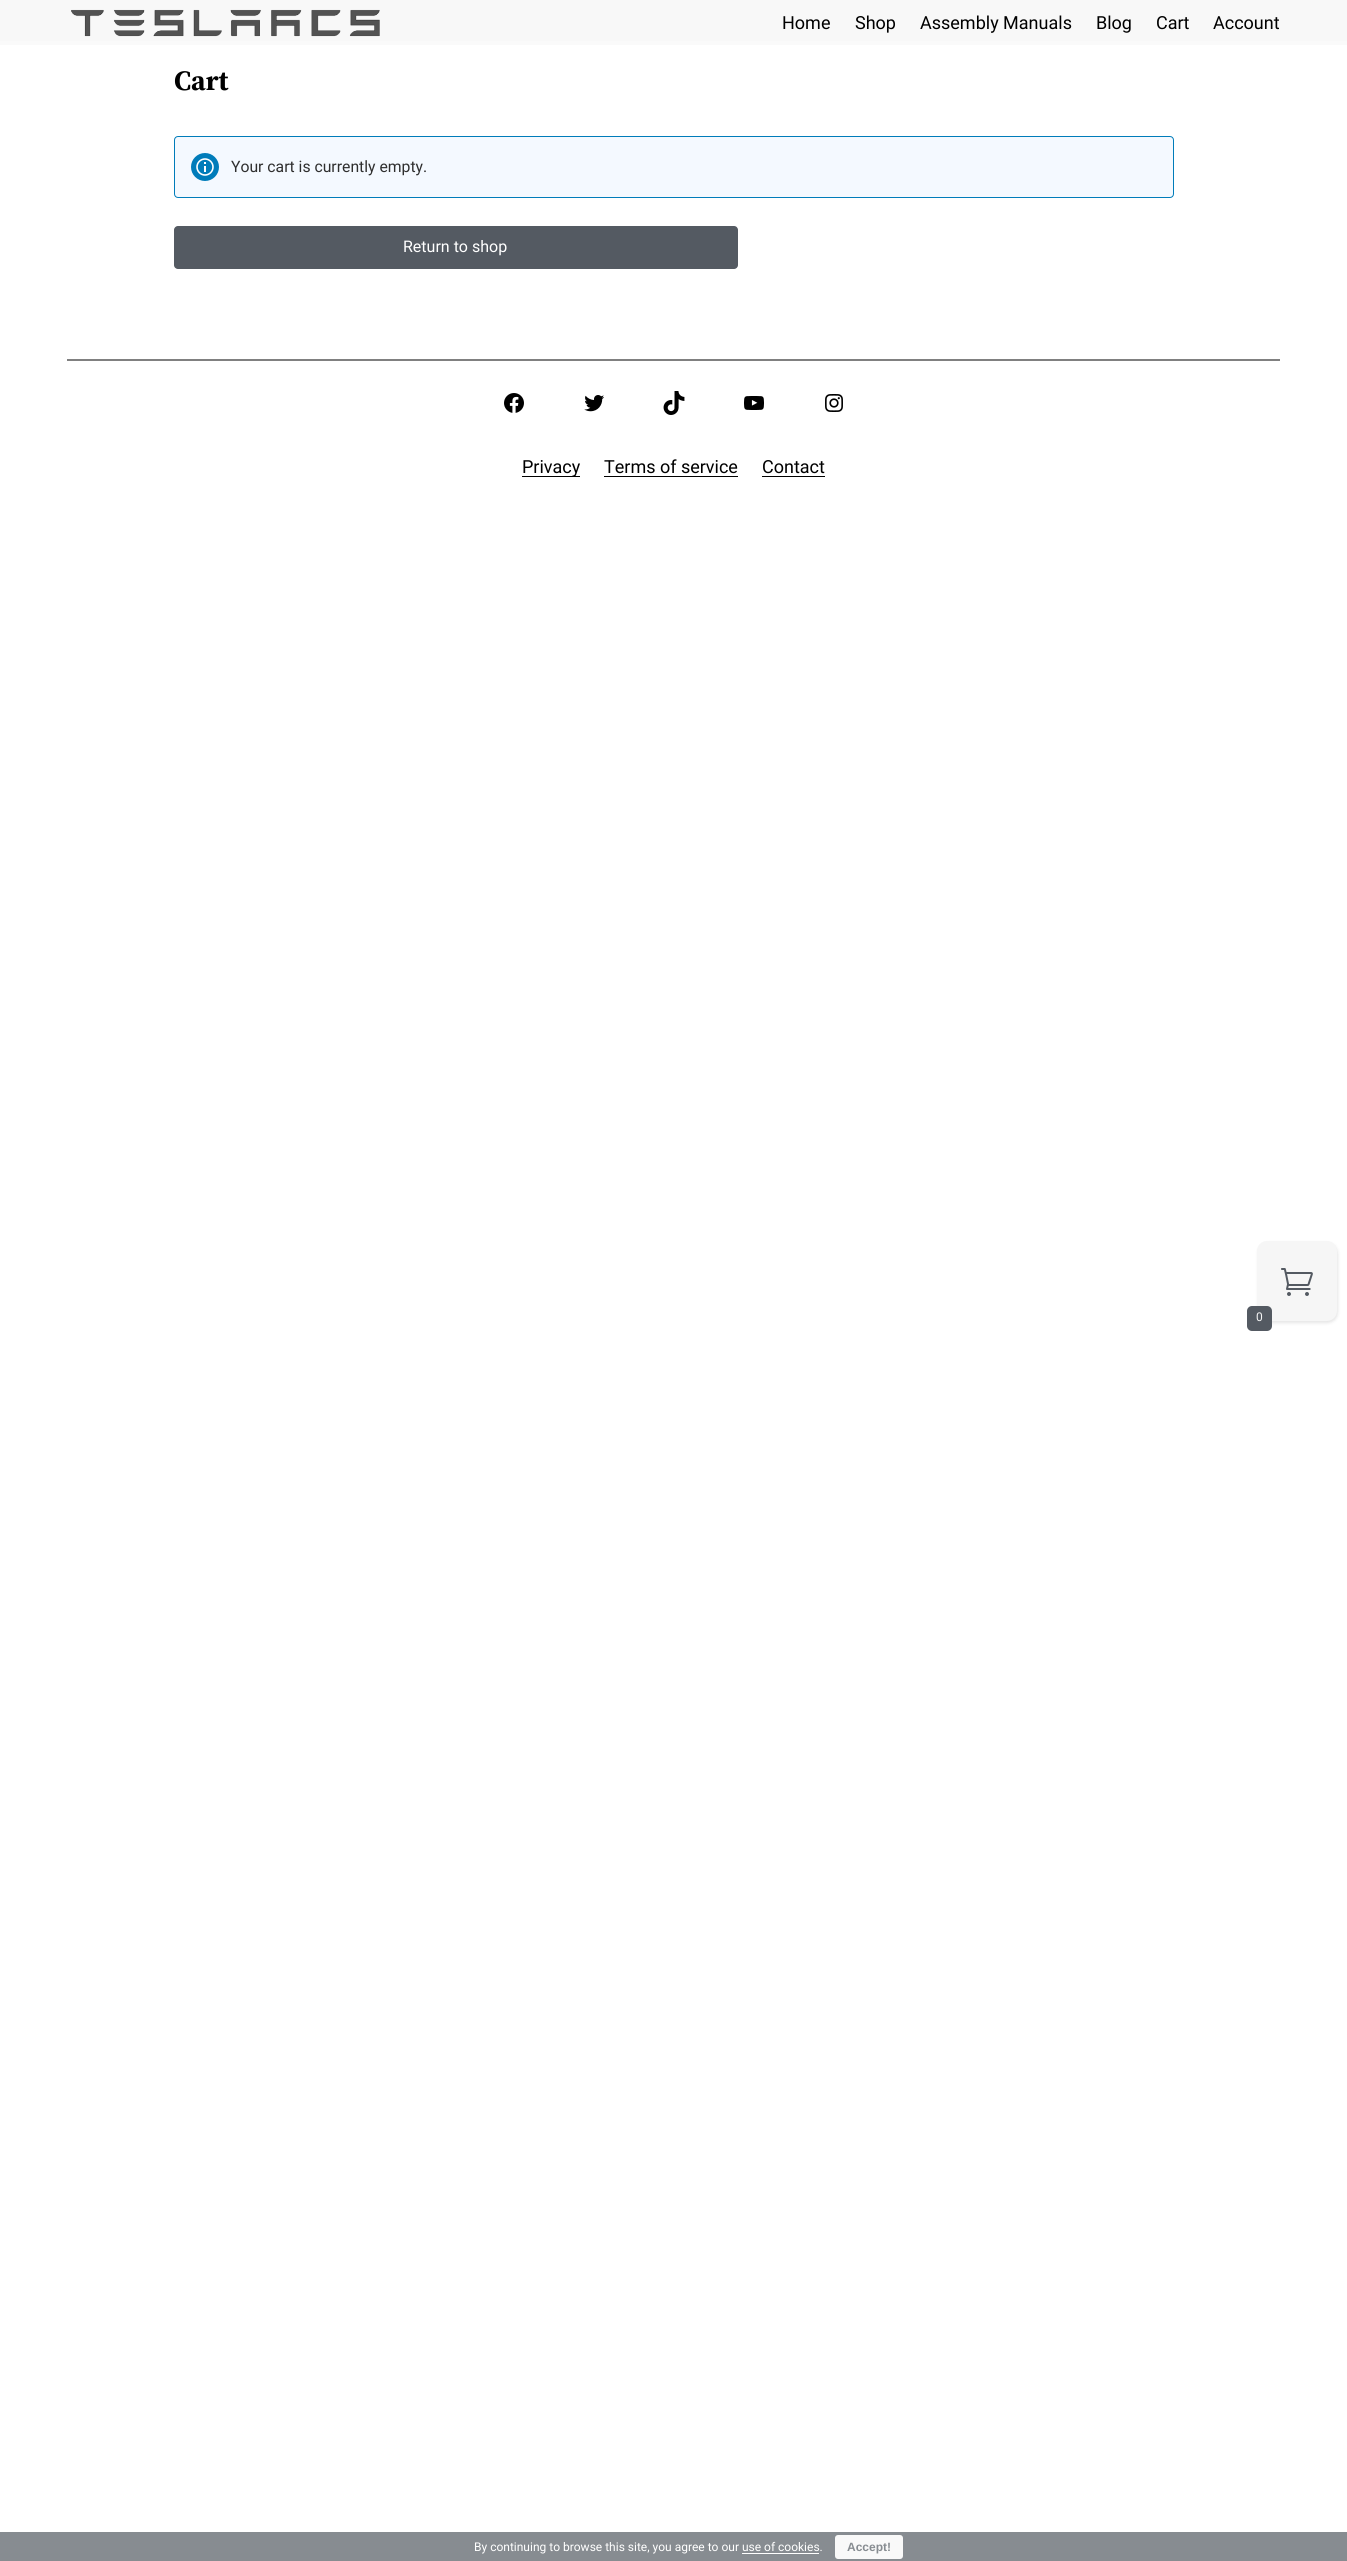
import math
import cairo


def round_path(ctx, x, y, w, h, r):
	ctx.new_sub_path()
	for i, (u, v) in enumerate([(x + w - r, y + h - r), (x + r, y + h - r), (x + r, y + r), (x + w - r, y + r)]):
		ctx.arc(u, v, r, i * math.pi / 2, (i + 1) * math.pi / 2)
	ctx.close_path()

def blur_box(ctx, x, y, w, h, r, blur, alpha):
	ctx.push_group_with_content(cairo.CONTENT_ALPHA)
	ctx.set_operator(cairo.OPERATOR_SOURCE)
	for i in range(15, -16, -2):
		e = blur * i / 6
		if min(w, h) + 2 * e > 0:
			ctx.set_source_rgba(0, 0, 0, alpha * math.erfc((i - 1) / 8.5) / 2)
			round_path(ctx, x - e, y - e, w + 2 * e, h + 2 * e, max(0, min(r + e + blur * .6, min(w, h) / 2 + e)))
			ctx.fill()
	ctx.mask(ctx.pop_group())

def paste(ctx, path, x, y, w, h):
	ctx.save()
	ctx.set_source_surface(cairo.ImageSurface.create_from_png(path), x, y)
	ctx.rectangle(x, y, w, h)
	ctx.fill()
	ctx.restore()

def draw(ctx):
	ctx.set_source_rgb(1, 1, 1)
	ctx.paint()
	ctx.set_source_rgb(0.98, 0.98, 0.98)
	ctx.rectangle(0, 41, 1347, 4)
	ctx.fill()
	ctx.set_source_rgb(0.969, 0.969, 0.969)
	ctx.rectangle(0, 0, 1347, 41)
	ctx.fill()
	paste(ctx, 'media/1.png', 71, 9, 309, 28)
	ctx.select_font_face('Roboto')
	ctx.set_font_size(18)
	ctx.set_source_rgb(0, 0, 0)
	for x, y, s in [
		(782, 29, 'Home'),
		(855, 29, 'Shop'),
		(920, 29, 'Assembly Manuals'),
		(1096, 29, 'Blog'),
		(1156, 29, 'Cart'),
		(1213, 29, 'Account'),
	]:
		ctx.move_to(x, y)
		ctx.show_text(s)
	ctx.select_font_face('Source Serif 4', cairo.FONT_SLANT_NORMAL, cairo.FONT_WEIGHT_BOLD)
	ctx.set_font_size(28)
	ctx.move_to(174, 90)
	ctx.show_text('Cart')
	ctx.set_source_rgb(0.957, 0.973, 1)
	round_path(ctx, 174.5, 136.5, 999, 61, 3.5)
	ctx.fill_preserve()
	ctx.set_source_rgb(0, 0.486, 0.729)
	ctx.set_line_width(1)
	ctx.stroke()
	ctx.arc(205, 167, 14, 0, 2 * math.pi)
	ctx.fill()
	paste(ctx, 'media/2.png', 196, 158, 18, 18)
	ctx.select_font_face('Roboto')
	ctx.set_font_size(15.75)
	ctx.set_source_rgb(0.184, 0.184, 0.184)
	ctx.move_to(231, 172)
	ctx.show_text('Your cart is currently empty.')
	ctx.set_source_rgb(0.329, 0.353, 0.384)
	round_path(ctx, 174, 226, 564, 43, 4)
	ctx.fill()
	ctx.set_font_size(16)
	ctx.set_source_rgb(1, 1, 1)
	ctx.move_to(403, 252)
	ctx.show_text('Return to shop')
	ctx.set_source_rgb(0.502, 0.502, 0.502)
	ctx.rectangle(67, 359, 1213, 2)
	ctx.fill()
	paste(ctx, 'media/3.png', 504, 393, 20, 20)
	paste(ctx, 'media/4.png', 584, 395, 20, 17)
	paste(ctx, 'media/5.png', 663, 391, 22, 24)
	paste(ctx, 'media/6.png', 744, 396, 20, 14)
	paste(ctx, 'media/7.png', 825, 394, 18, 18)
	ctx.set_source_rgb(0, 0, 0)
	ctx.rectangle(522, 476, 58, 1)
	ctx.fill()
	ctx.set_font_size(18)
	ctx.move_to(522, 473)
	ctx.show_text('Privacy')
	ctx.move_to(604, 473)
	ctx.show_text('Terms of service')
	ctx.rectangle(604, 476, 134, 1)
	ctx.fill()
	ctx.move_to(762, 473)
	ctx.show_text('Contact')
	ctx.rectangle(762, 476, 63, 1)
	ctx.fill()
	ctx.set_source_rgb(0, 0, 0)
	blur_box(ctx, 1258, 1243, 80, 80, 10, 1.5, 0.1)
	ctx.set_source_rgb(0.961, 0.961, 0.961)
	round_path(ctx, 1257, 1241, 80, 80, 10)
	ctx.fill()
	paste(ctx, 'media/8.png', 1281, 1268, 32, 28)
	ctx.set_source_rgb(0.329, 0.353, 0.384)
	round_path(ctx, 1247, 1306, 25, 25, 5)
	ctx.fill()
	ctx.set_font_size(12)
	ctx.set_source_rgb(0.961, 0.961, 0.961)
	ctx.move_to(1256, 1321)
	ctx.show_text('0')
	ctx.set_source_rgb(0.529, 0.549, 0.569)
	ctx.rectangle(0, 2532, 1347, 29)
	ctx.fill()
	ctx.set_source_rgb(1, 1, 1)
	ctx.move_to(474, 2551)
	ctx.show_text('By continuing to browse this site, you agree to our use of cookies.')
	ctx.set_source_rgb(0.973, 0.973, 0.973)
	round_path(ctx, 835, 2535, 68, 24, 3)
	ctx.fill()
	ctx.select_font_face('Liberation Sans', cairo.FONT_SLANT_NORMAL, cairo.FONT_WEIGHT_BOLD)
	ctx.set_source_rgb(0.529, 0.549, 0.569)
	ctx.move_to(847, 2551)
	ctx.show_text('Accept!')
	ctx.set_source_rgb(1, 1, 1)
	ctx.rectangle(742, 2553, 77, 1)
	ctx.fill()


surface = cairo.ImageSurface(cairo.FORMAT_RGB24, 1347, 2561)
ctx = cairo.Context(surface)
options = cairo.FontOptions()
options.set_hint_metrics(cairo.HINT_METRICS_OFF)
options.set_hint_style(cairo.HINT_STYLE_NONE)
ctx.set_font_options(options)
ctx.set_miter_limit(4)
draw(ctx)
surface.write_to_png('image.png')
